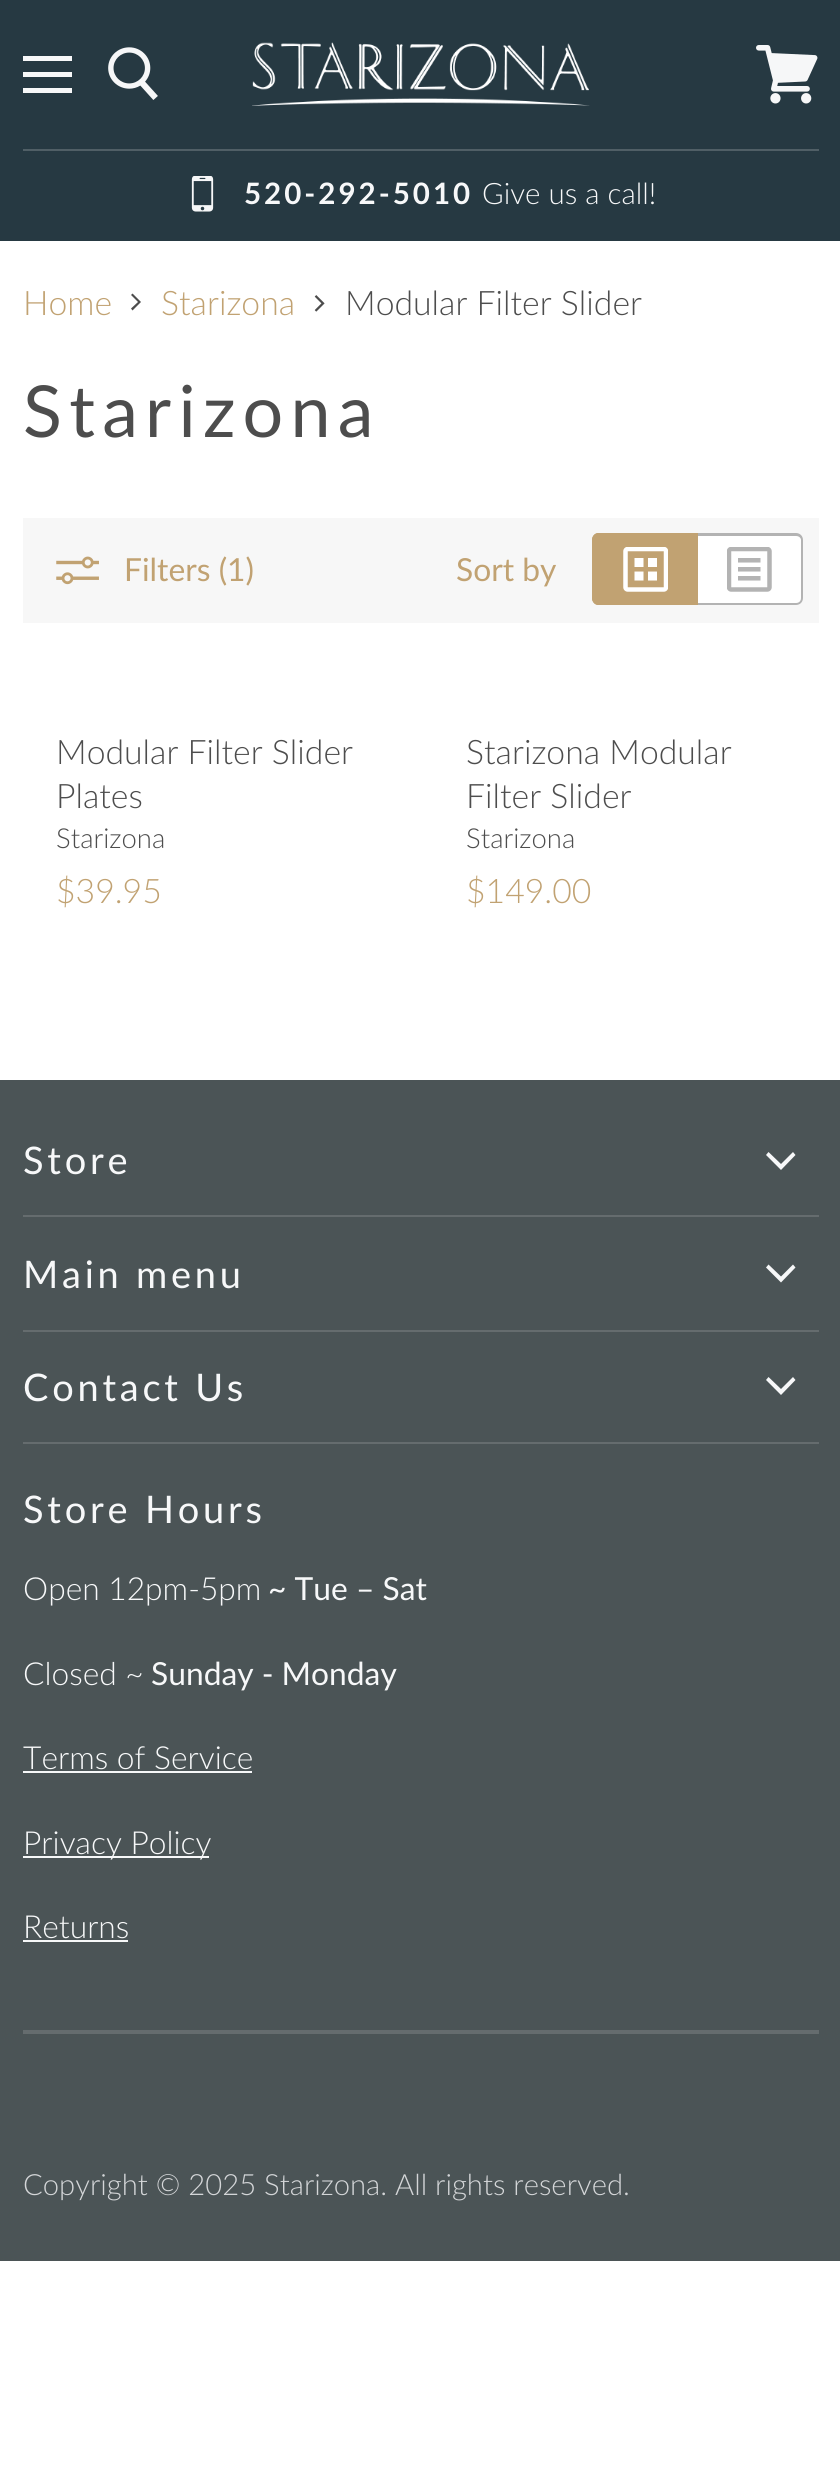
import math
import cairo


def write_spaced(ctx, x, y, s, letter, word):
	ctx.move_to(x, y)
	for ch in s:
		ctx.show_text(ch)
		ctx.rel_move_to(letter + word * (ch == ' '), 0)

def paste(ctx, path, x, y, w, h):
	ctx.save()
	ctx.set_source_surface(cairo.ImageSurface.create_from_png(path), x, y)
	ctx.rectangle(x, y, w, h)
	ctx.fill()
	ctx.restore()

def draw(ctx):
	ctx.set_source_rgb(1, 1, 1)
	ctx.paint()
	ctx.set_source_rgb(0.149, 0.224, 0.259)
	ctx.rectangle(0, 0, 840, 241)
	ctx.fill()
	ctx.set_source_rgb(0.965, 0.969, 0.973)
	ctx.rectangle(23, 56, 49, 5)
	ctx.rectangle(23, 72, 49, 5)
	ctx.rectangle(23, 88, 49, 5)
	ctx.fill()
	paste(ctx, 'media/1.png', 108, 47, 50, 53)
	paste(ctx, 'media/2.png', 756, 45, 62, 59)
	paste(ctx, 'media/3.png', 252, 42, 338, 64)
	ctx.set_source_rgb(0.314, 0.373, 0.4)
	ctx.rectangle(23, 149, 796, 2)
	ctx.fill()
	paste(ctx, 'media/4.png', 191, 176, 23, 36)
	ctx.select_font_face('Lato', cairo.FONT_SLANT_NORMAL, cairo.FONT_WEIGHT_BOLD)
	ctx.set_font_size(29.5)
	ctx.set_source_rgb(0.965, 0.969, 0.973)
	write_spaced(ctx, 244, 204, '520-292-5010', 3, 0)
	ctx.select_font_face('Lato Light')
	ctx.move_to(482, 204)
	ctx.show_text('Give us a call!')
	ctx.set_font_size(33.75)
	ctx.set_source_rgb(0.757, 0.635, 0.447)
	ctx.move_to(23, 315)
	ctx.show_text('Home')
	ctx.set_source_rgb(0.302, 0.302, 0.302)
	ctx.set_fill_rule(cairo.FILL_RULE_EVEN_ODD)
	ctx.new_path()
	ctx.move_to(131, 308.5)
	ctx.line_to(132.5, 310.5)
	ctx.line_to(141, 302)
	ctx.line_to(132.5, 293.5)
	ctx.line_to(131, 295)
	ctx.line_to(138, 302)
	ctx.close_path()
	ctx.fill()
	ctx.set_source_rgb(0.757, 0.635, 0.447)
	ctx.move_to(161, 315)
	ctx.show_text('Starizona')
	paste(ctx, 'media/5.png', 314, 295, 11, 17)
	ctx.set_source_rgb(0.302, 0.302, 0.302)
	ctx.move_to(345, 315)
	ctx.show_text('Modular Filter Slider')
	ctx.select_font_face('Lato')
	ctx.set_font_size(71.75)
	write_spaced(ctx, 23, 437, 'Starizona', 7.25, 0)
	ctx.set_source_rgb(0.965, 0.965, 0.965)
	ctx.rectangle(23, 518, 796, 105)
	ctx.fill()
	paste(ctx, 'media/6.png', 56, 556, 43, 29)
	ctx.set_font_size(31.75)
	ctx.set_source_rgb(0.757, 0.635, 0.447)
	ctx.move_to(124, 581)
	ctx.show_text('Filters (1)')
	ctx.move_to(456, 581)
	ctx.show_text('Sort by')
	ctx.new_path()
	ctx.move_to(599, 533)
	ctx.line_to(698, 533)
	ctx.line_to(698, 605)
	ctx.line_to(599, 605)
	ctx.curve_to(595, 605, 592, 602, 592, 598)
	ctx.line_to(592, 540)
	ctx.curve_to(592, 536, 595, 533, 599, 533)
	ctx.close_path()
	ctx.fill()
	ctx.new_path()
	ctx.move_to(598, 533)
	ctx.line_to(698, 533)
	ctx.line_to(698, 605)
	ctx.line_to(598, 605)
	ctx.curve_to(595, 605, 592, 602, 592, 598)
	ctx.line_to(592, 540)
	ctx.curve_to(592, 536, 595, 533, 598, 533)
	ctx.close_path()
	ctx.move_to(598, 536)
	ctx.line_to(698, 536)
	ctx.line_to(698, 603)
	ctx.line_to(598, 603)
	ctx.curve_to(596, 603, 594, 601, 594, 598)
	ctx.line_to(594, 540)
	ctx.curve_to(594, 538, 596, 536, 598, 536)
	ctx.close_path()
	ctx.fill()
	paste(ctx, 'media/7.png', 623, 547, 45, 45)
	ctx.set_source_rgb(1, 1, 1)
	ctx.new_path()
	ctx.move_to(698, 533)
	ctx.line_to(796, 533)
	ctx.curve_to(800, 533, 803, 536, 803, 540)
	ctx.line_to(803, 598)
	ctx.curve_to(803, 602, 800, 605, 796, 605)
	ctx.line_to(698, 605)
	ctx.close_path()
	ctx.fill()
	ctx.set_source_rgb(0.702, 0.702, 0.702)
	ctx.new_path()
	ctx.move_to(698, 533)
	ctx.line_to(796, 533)
	ctx.curve_to(800, 533, 803, 536, 803, 540)
	ctx.line_to(803, 598)
	ctx.curve_to(803, 602, 800, 605, 796, 605)
	ctx.line_to(698, 605)
	ctx.close_path()
	ctx.move_to(698, 536)
	ctx.line_to(796, 536)
	ctx.curve_to(799, 536, 801, 538, 801, 540)
	ctx.line_to(801, 598)
	ctx.curve_to(801, 601, 799, 603, 796, 603)
	ctx.line_to(698, 603)
	ctx.close_path()
	ctx.fill()
	paste(ctx, 'media/8.png', 727, 547, 45, 45)
	ctx.select_font_face('Lato Light')
	ctx.set_font_size(33.75)
	ctx.set_source_rgb(0.302, 0.302, 0.302)
	ctx.move_to(56, 764)
	ctx.show_text('Modular Filter Slider')
	ctx.move_to(56, 808)
	ctx.show_text('Plates')
	ctx.set_font_size(27.5)
	ctx.move_to(56, 848)
	ctx.show_text('Starizona')
	ctx.set_font_size(33.75)
	ctx.set_source_rgb(0.757, 0.635, 0.447)
	ctx.move_to(56, 903)
	ctx.show_text('$39.95')
	ctx.set_source_rgb(0.302, 0.302, 0.302)
	ctx.move_to(466, 764)
	ctx.show_text('Starizona Modular')
	ctx.move_to(466, 808)
	ctx.show_text('Filter Slider')
	ctx.set_font_size(27.5)
	ctx.move_to(466, 848)
	ctx.show_text('Starizona')
	ctx.set_font_size(33.75)
	ctx.set_source_rgb(0.757, 0.635, 0.447)
	ctx.move_to(466, 903)
	ctx.show_text('$149.00')
	ctx.set_source_rgb(0.294, 0.329, 0.337)
	ctx.rectangle(0, 1080, 840, 1181)
	ctx.fill()
	ctx.set_source_rgb(0.396, 0.424, 0.431)
	ctx.rectangle(23, 1215, 796, 2)
	ctx.fill()
	ctx.select_font_face('Lato')
	ctx.set_font_size(38)
	ctx.set_source_rgb(0.965, 0.969, 0.973)
	write_spaced(ctx, 23, 1174, 'Store', 3.75, 0)
	ctx.new_path()
	ctx.move_to(781, 1170)
	ctx.line_to(795.5, 1155)
	ctx.line_to(793, 1152)
	ctx.line_to(781, 1164)
	ctx.close_path()
	ctx.move_to(781, 1164)
	ctx.line_to(768.5, 1152)
	ctx.line_to(766, 1155)
	ctx.line_to(781, 1170)
	ctx.close_path()
	ctx.fill()
	ctx.set_source_rgb(0.396, 0.424, 0.431)
	ctx.rectangle(23, 1330, 796, 2)
	ctx.fill()
	ctx.set_source_rgb(0.965, 0.969, 0.973)
	write_spaced(ctx, 23, 1288, 'Main menu', 3.75, 0)
	ctx.new_path()
	ctx.move_to(781, 1282.5)
	ctx.line_to(795.5, 1267.5)
	ctx.line_to(793, 1264.5)
	ctx.line_to(781, 1276.5)
	ctx.close_path()
	ctx.move_to(781, 1276.5)
	ctx.line_to(768.5, 1264.5)
	ctx.line_to(766, 1267.5)
	ctx.line_to(781, 1282.5)
	ctx.close_path()
	ctx.fill()
	ctx.set_source_rgb(0.396, 0.424, 0.431)
	ctx.rectangle(23, 1442, 796, 2)
	ctx.fill()
	ctx.set_source_rgb(0.965, 0.969, 0.973)
	write_spaced(ctx, 23, 1401, 'Contact Us', 3.75, 0)
	ctx.new_path()
	ctx.move_to(781, 1395)
	ctx.line_to(795.5, 1380)
	ctx.line_to(793, 1377)
	ctx.line_to(781, 1389)
	ctx.close_path()
	ctx.move_to(781, 1389)
	ctx.line_to(768.5, 1377)
	ctx.line_to(766, 1380)
	ctx.line_to(781, 1395)
	ctx.close_path()
	ctx.fill()
	ctx.set_source_rgb(0.396, 0.424, 0.431)
	ctx.rectangle(23, 2030, 796, 4)
	ctx.fill()
	ctx.set_source_rgb(0.965, 0.969, 0.973)
	write_spaced(ctx, 23, 1523, 'Store Hours', 3.75, 0)
	ctx.select_font_face('Lato Light')
	ctx.set_font_size(31.75)
	ctx.move_to(23, 1600)
	ctx.show_text('Open 12pm-5pm')
	ctx.select_font_face('Lato')
	ctx.move_to(268, 1600)
	ctx.show_text('~ Tue – Sat')
	ctx.select_font_face('Lato Light')
	ctx.move_to(23, 1685)
	ctx.show_text('Closed ~')
	ctx.select_font_face('Lato')
	ctx.move_to(151, 1685)
	ctx.show_text('Sunday - Monday')
	ctx.select_font_face('Lato Light')
	ctx.move_to(23, 1769)
	ctx.show_text('Terms of Service')
	ctx.rectangle(23, 1771, 229, 2)
	ctx.fill()
	ctx.rectangle(23, 1856, 186, 2)
	ctx.fill()
	ctx.move_to(23, 1854)
	ctx.show_text('Privacy Policy')
	ctx.move_to(23, 1938)
	ctx.show_text('Returns')
	ctx.rectangle(23, 1940, 105, 2)
	ctx.fill()
	ctx.set_font_size(29.25)
	ctx.set_source_rgb(0.831, 0.839, 0.847)
	ctx.move_to(23, 2195)
	ctx.show_text('Copyright © 2025 Starizona. All rights reserved.')


surface = cairo.ImageSurface(cairo.FORMAT_RGB24, 840, 2472)
ctx = cairo.Context(surface)
options = cairo.FontOptions()
options.set_hint_metrics(cairo.HINT_METRICS_OFF)
options.set_hint_style(cairo.HINT_STYLE_NONE)
ctx.set_font_options(options)
ctx.set_miter_limit(4)
draw(ctx)
surface.write_to_png('image.png')
